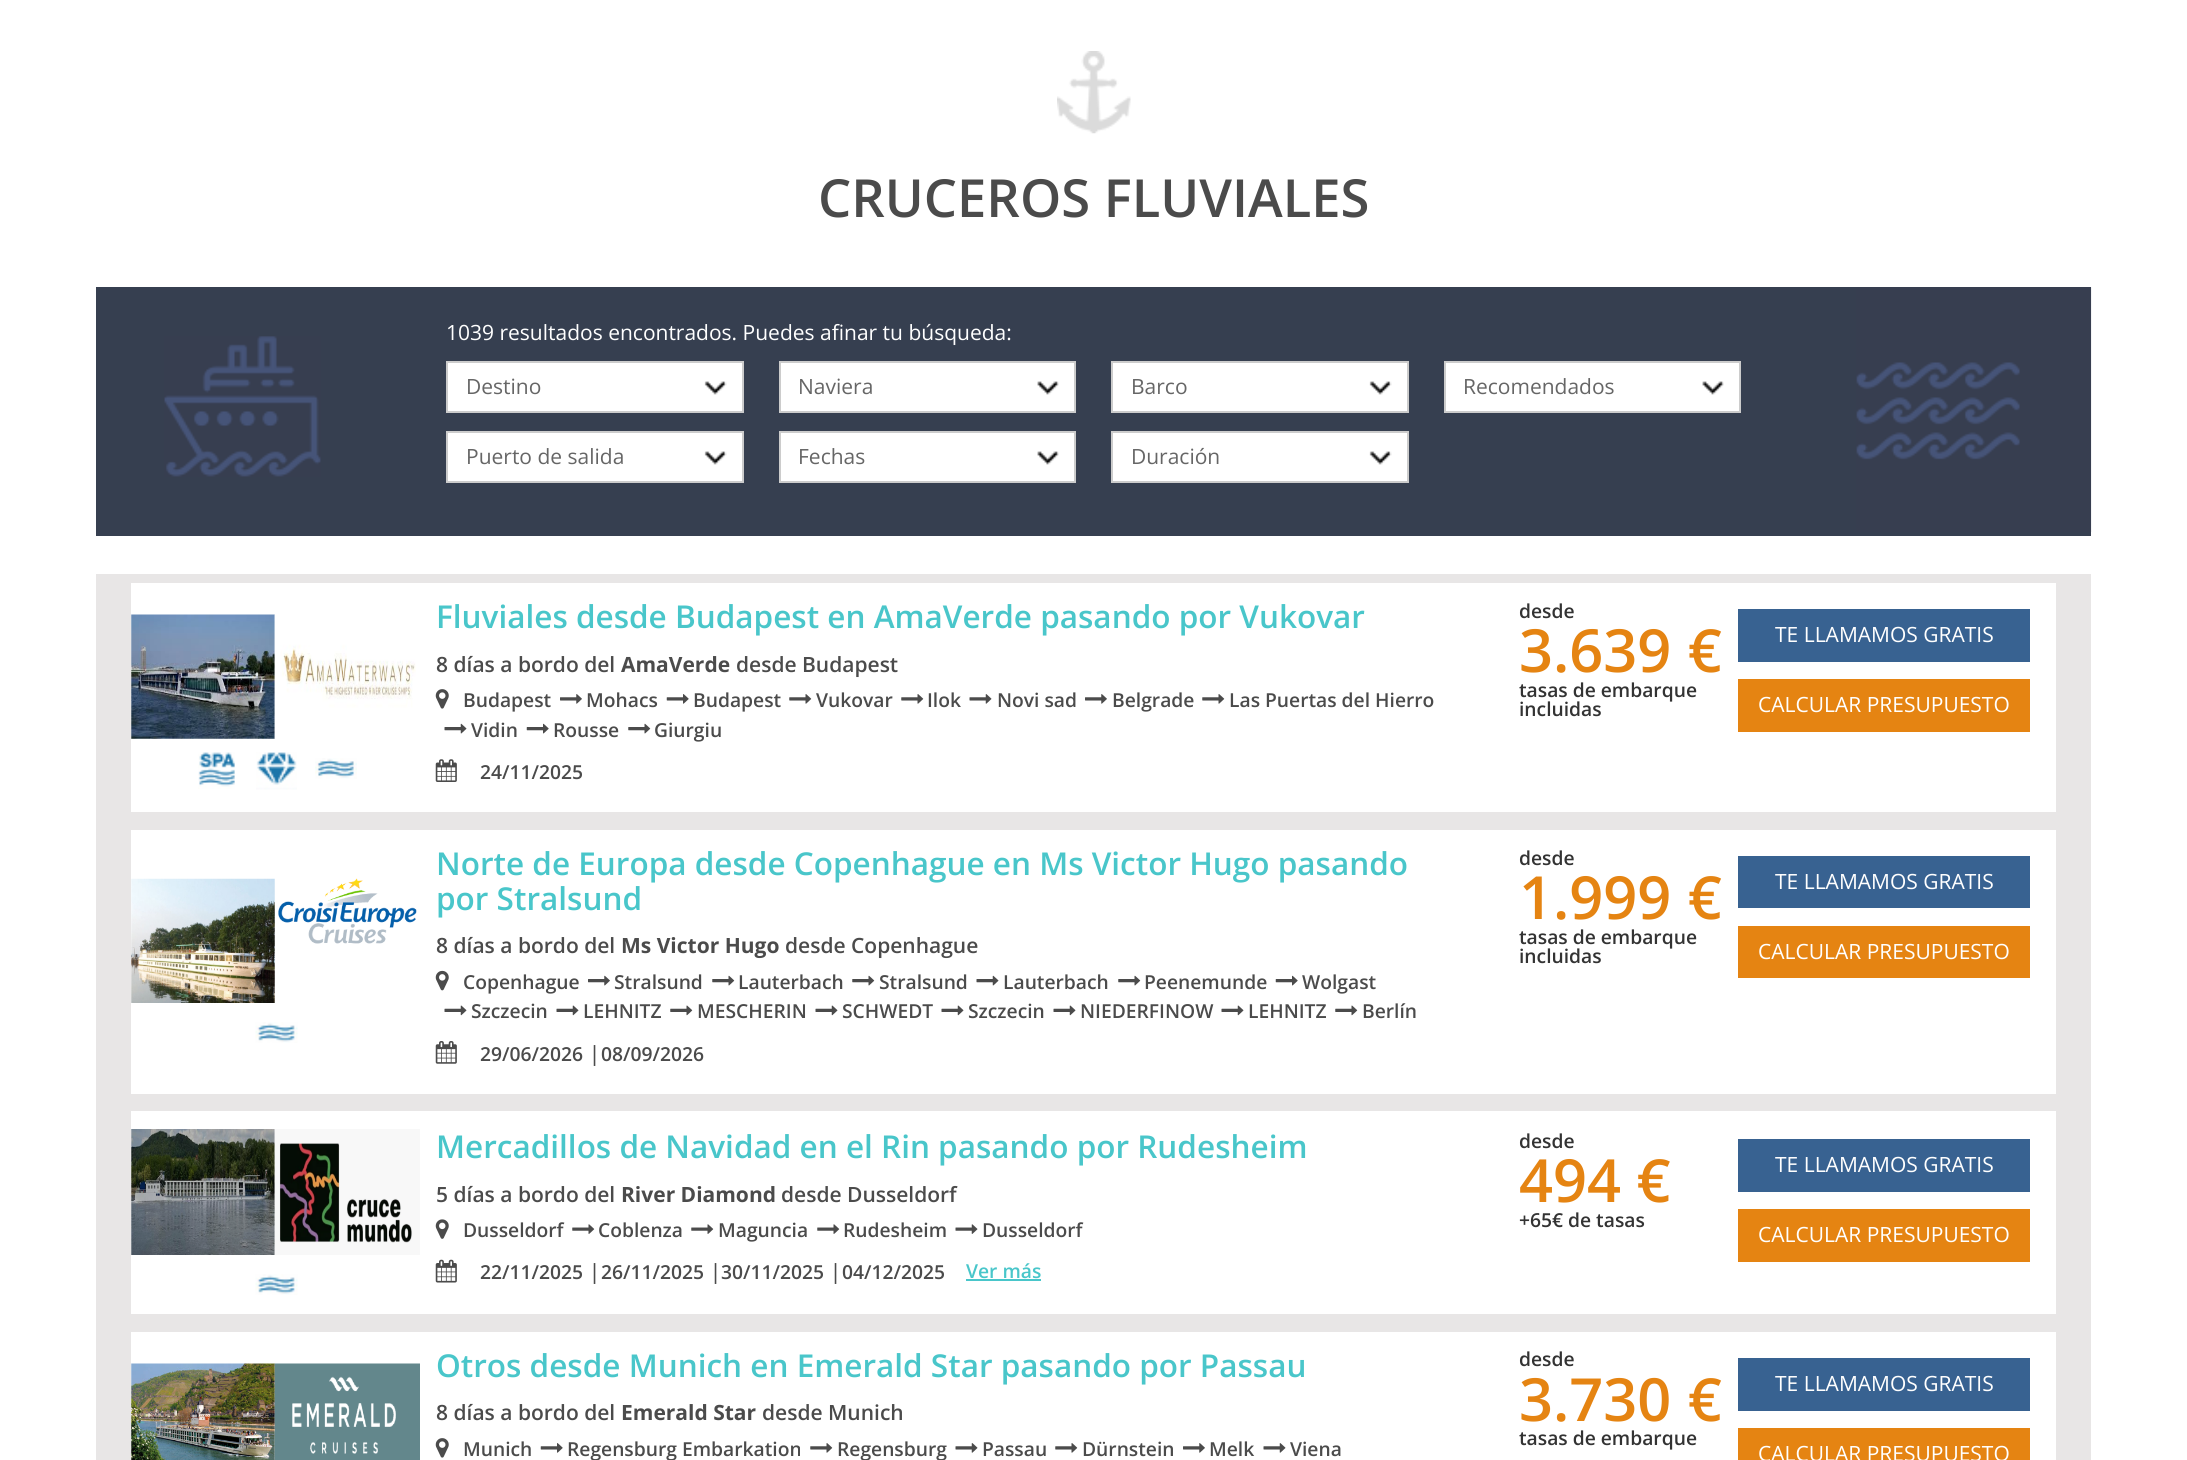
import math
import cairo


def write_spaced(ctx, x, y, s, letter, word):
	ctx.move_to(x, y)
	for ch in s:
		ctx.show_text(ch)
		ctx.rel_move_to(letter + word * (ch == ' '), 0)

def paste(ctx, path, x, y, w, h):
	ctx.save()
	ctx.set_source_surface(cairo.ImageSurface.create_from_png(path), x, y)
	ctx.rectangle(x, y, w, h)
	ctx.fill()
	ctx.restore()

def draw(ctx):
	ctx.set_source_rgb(1, 1, 1)
	ctx.paint()
	paste(ctx, 'media/1.png', 1057, 51, 74, 83)
	ctx.select_font_face('Open Sans SemiBold')
	ctx.set_font_size(52.5)
	ctx.set_source_rgb(0.294, 0.294, 0.294)
	ctx.move_to(818, 217)
	ctx.show_text('CRUCEROS FLUVIALES')
	ctx.set_source_rgb(0.212, 0.247, 0.314)
	ctx.rectangle(96, 287, 1995, 249)
	ctx.fill()
	paste(ctx, 'media/2.png', 164, 336, 157, 141)
	ctx.select_font_face('Open Sans')
	ctx.set_font_size(21)
	ctx.set_source_rgb(1, 1, 1)
	ctx.move_to(446, 340)
	ctx.show_text('1039 resultados encontrados. Puedes afinar tu búsqueda:')
	paste(ctx, 'media/3.png', 1856, 287, 236, 245)
	ctx.rectangle(448, 363, 294, 48)
	ctx.fill()
	paste(ctx, 'media/4.png', 704, 381, 23, 14)
	ctx.rectangle(447, 362, 296, 50)
	ctx.set_source_rgb(0.8, 0.8, 0.8)
	ctx.stroke()
	ctx.set_source_rgb(0.4, 0.4, 0.4)
	ctx.move_to(466, 394)
	ctx.show_text('Destino')
	ctx.set_source_rgb(1, 1, 1)
	ctx.rectangle(781, 363, 293, 48)
	ctx.fill()
	paste(ctx, 'media/5.png', 1037, 381, 22, 14)
	ctx.rectangle(780, 362, 295, 50)
	ctx.set_source_rgb(0.8, 0.8, 0.8)
	ctx.stroke()
	ctx.set_source_rgb(0.4, 0.4, 0.4)
	ctx.move_to(798, 394)
	ctx.show_text('Naviera')
	ctx.set_source_rgb(1, 1, 1)
	ctx.rectangle(1113, 363, 294, 48)
	ctx.fill()
	paste(ctx, 'media/6.png', 1369, 381, 23, 14)
	ctx.rectangle(1112, 362, 296, 50)
	ctx.set_source_rgb(0.8, 0.8, 0.8)
	ctx.stroke()
	ctx.set_source_rgb(0.4, 0.4, 0.4)
	ctx.move_to(1131, 394)
	ctx.show_text('Barco')
	ctx.set_source_rgb(1, 1, 1)
	ctx.rectangle(1446, 363, 293, 48)
	ctx.fill()
	paste(ctx, 'media/7.png', 1702, 381, 22, 14)
	ctx.rectangle(1445, 362, 295, 50)
	ctx.set_source_rgb(0.8, 0.8, 0.8)
	ctx.stroke()
	ctx.set_source_rgb(0.4, 0.4, 0.4)
	ctx.move_to(1463, 394)
	ctx.show_text('Recomendados')
	ctx.set_source_rgb(1, 1, 1)
	ctx.rectangle(448, 433, 294, 48)
	ctx.fill()
	paste(ctx, 'media/4.png', 704, 451, 23, 14)
	ctx.rectangle(447, 432, 296, 50)
	ctx.set_source_rgb(0.8, 0.8, 0.8)
	ctx.stroke()
	ctx.set_source_rgb(0.4, 0.4, 0.4)
	ctx.move_to(466, 464)
	ctx.show_text('Puerto de salida')
	ctx.set_source_rgb(1, 1, 1)
	ctx.rectangle(781, 433, 293, 48)
	ctx.fill()
	paste(ctx, 'media/5.png', 1037, 451, 22, 14)
	ctx.rectangle(780, 432, 295, 50)
	ctx.set_source_rgb(0.8, 0.8, 0.8)
	ctx.stroke()
	ctx.set_source_rgb(0.4, 0.4, 0.4)
	ctx.move_to(798, 464)
	ctx.show_text('Fechas')
	ctx.set_source_rgb(1, 1, 1)
	ctx.rectangle(1113, 433, 294, 48)
	ctx.fill()
	paste(ctx, 'media/6.png', 1369, 451, 23, 14)
	ctx.rectangle(1112, 432, 296, 50)
	ctx.set_source_rgb(0.8, 0.8, 0.8)
	ctx.stroke()
	ctx.set_source_rgb(0.4, 0.4, 0.4)
	ctx.move_to(1131, 464)
	ctx.show_text('Duración')
	ctx.set_source_rgb(0.91, 0.902, 0.902)
	ctx.rectangle(96, 574, 1995, 886)
	ctx.fill()
	ctx.set_source_rgb(1, 1, 1)
	ctx.rectangle(131, 583, 1925, 229)
	ctx.fill()
	paste(ctx, 'media/8.png', 131, 614, 144, 125)
	paste(ctx, 'media/9.png', 274, 614, 142, 125)
	paste(ctx, 'media/10.png', 198, 752, 37, 37)
	paste(ctx, 'media/11.png', 256, 752, 41, 38)
	paste(ctx, 'media/12.png', 315, 758, 42, 21)
	ctx.select_font_face('Open Sans SemiBold')
	ctx.set_font_size(31.5)
	ctx.set_source_rgb(0.286, 0.776, 0.792)
	ctx.move_to(436, 628)
	ctx.show_text('Fluviales desde Budapest en AmaVerde pasando por Vukovar')
	ctx.set_font_size(21)
	ctx.set_source_rgb(0.294, 0.294, 0.294)
	ctx.move_to(436, 672)
	ctx.show_text('8 días a bordo del')
	ctx.select_font_face('Open Sans', cairo.FONT_SLANT_NORMAL, cairo.FONT_WEIGHT_BOLD)
	ctx.move_to(621, 672)
	ctx.show_text('AmaVerde')
	ctx.select_font_face('Open Sans SemiBold')
	ctx.move_to(736, 672)
	ctx.show_text('desde Budapest')
	paste(ctx, 'media/13.png', 435, 689, 14, 20)
	ctx.set_font_size(19.25)
	ctx.move_to(463, 707)
	ctx.show_text('Budapest')
	paste(ctx, 'media/14.png', 560, 694, 22, 10)
	ctx.move_to(586, 707)
	ctx.show_text('Mohacs')
	paste(ctx, 'media/15.png', 666, 694, 23, 10)
	ctx.move_to(693, 707)
	ctx.show_text('Budapest')
	paste(ctx, 'media/16.png', 789, 694, 23, 10)
	ctx.move_to(816, 707)
	ctx.show_text('Vukovar')
	paste(ctx, 'media/16.png', 901, 694, 23, 10)
	ctx.move_to(927, 707)
	ctx.show_text('Ilok')
	paste(ctx, 'media/17.png', 969, 694, 23, 10)
	ctx.move_to(997, 707)
	ctx.show_text('Novi sad')
	paste(ctx, 'media/14.png', 1085, 694, 22, 10)
	ctx.move_to(1112, 707)
	ctx.show_text('Belgrade')
	paste(ctx, 'media/16.png', 1202, 694, 23, 10)
	ctx.move_to(1229, 707)
	ctx.show_text('Las Puertas del Hierro')
	paste(ctx, 'media/18.png', 444, 723, 23, 11)
	ctx.move_to(471, 737)
	ctx.show_text('Vidin')
	paste(ctx, 'media/19.png', 526, 723, 23, 11)
	ctx.move_to(553, 737)
	ctx.show_text('Rousse')
	paste(ctx, 'media/20.png', 628, 723, 23, 11)
	ctx.move_to(654, 737)
	ctx.show_text('Giurgiu')
	paste(ctx, 'media/21.png', 435, 759, 22, 23)
	ctx.move_to(480, 779)
	ctx.show_text('24/11/2025')
	ctx.set_source_rgb(0.2, 0.2, 0.2)
	ctx.move_to(1519, 618)
	ctx.show_text('desde')
	ctx.set_font_size(59.5)
	ctx.set_source_rgb(0.898, 0.518, 0.071)
	write_spaced(ctx, 1519, 672, '3.639 €', 0, 1)
	ctx.set_font_size(19.25)
	ctx.set_source_rgb(0.2, 0.2, 0.2)
	ctx.move_to(1519, 697)
	ctx.show_text('tasas de embarque')
	ctx.move_to(1519, 716)
	ctx.show_text('incluidas')
	ctx.set_source_rgb(0.22, 0.384, 0.569)
	ctx.rectangle(1738, 609, 292, 53)
	ctx.fill()
	ctx.select_font_face('Open Sans')
	ctx.set_font_size(21)
	ctx.set_source_rgb(1, 1, 1)
	ctx.move_to(1775, 642)
	ctx.show_text('TE LLAMAMOS GRATIS')
	ctx.set_source_rgb(0.898, 0.518, 0.071)
	ctx.rectangle(1738, 679, 292, 53)
	ctx.fill()
	ctx.set_source_rgb(1, 1, 1)
	ctx.move_to(1758, 712)
	ctx.show_text('CALCULAR PRESUPUESTO')
	ctx.rectangle(131, 830, 1925, 264)
	ctx.fill()
	paste(ctx, 'media/22.png', 131, 878, 144, 125)
	paste(ctx, 'media/23.png', 278, 878, 139, 66)
	paste(ctx, 'media/24.png', 255, 1022, 43, 21)
	ctx.select_font_face('Open Sans SemiBold')
	ctx.set_font_size(31.5)
	ctx.set_source_rgb(0.286, 0.776, 0.792)
	ctx.move_to(436, 875)
	ctx.show_text('Norte de Europa desde Copenhague en Ms Victor Hugo pasando')
	ctx.move_to(436, 910)
	ctx.show_text('por Stralsund')
	ctx.set_font_size(21)
	ctx.set_source_rgb(0.294, 0.294, 0.294)
	ctx.move_to(436, 953)
	ctx.show_text('8 días a bordo del')
	ctx.select_font_face('Open Sans', cairo.FONT_SLANT_NORMAL, cairo.FONT_WEIGHT_BOLD)
	ctx.move_to(621, 953)
	ctx.show_text('Ms Victor Hugo')
	ctx.select_font_face('Open Sans SemiBold')
	ctx.move_to(785, 953)
	ctx.show_text('desde Copenhague')
	paste(ctx, 'media/25.png', 435, 970, 14, 21)
	ctx.set_font_size(19.25)
	ctx.move_to(463, 989)
	ctx.show_text('Copenhague')
	paste(ctx, 'media/26.png', 588, 975, 22, 11)
	ctx.move_to(614, 989)
	ctx.show_text('Stralsund')
	paste(ctx, 'media/20.png', 712, 975, 23, 11)
	ctx.move_to(738, 989)
	ctx.show_text('Lauterbach')
	paste(ctx, 'media/20.png', 852, 975, 23, 11)
	ctx.move_to(879, 989)
	ctx.show_text('Stralsund')
	paste(ctx, 'media/27.png', 976, 975, 23, 11)
	ctx.move_to(1003, 989)
	ctx.show_text('Lauterbach')
	paste(ctx, 'media/20.png', 1118, 975, 23, 11)
	ctx.move_to(1144, 989)
	ctx.show_text('Peenemunde')
	paste(ctx, 'media/19.png', 1275, 975, 23, 11)
	ctx.move_to(1302, 989)
	ctx.show_text('Wolgast')
	paste(ctx, 'media/28.png', 444, 1005, 23, 11)
	ctx.move_to(471, 1018)
	ctx.show_text('Szczecin')
	paste(ctx, 'media/29.png', 556, 1005, 23, 11)
	ctx.move_to(583, 1018)
	ctx.show_text('LEHNITZ')
	paste(ctx, 'media/30.png', 670, 1005, 23, 11)
	ctx.move_to(697, 1018)
	ctx.show_text('MESCHERIN')
	paste(ctx, 'media/29.png', 815, 1005, 23, 11)
	ctx.move_to(842, 1018)
	ctx.show_text('SCHWEDT')
	paste(ctx, 'media/29.png', 941, 1005, 23, 11)
	ctx.move_to(968, 1018)
	ctx.show_text('Szczecin')
	paste(ctx, 'media/29.png', 1053, 1005, 23, 11)
	ctx.move_to(1080, 1018)
	ctx.show_text('NIEDERFINOW')
	paste(ctx, 'media/29.png', 1221, 1005, 23, 11)
	ctx.move_to(1248, 1018)
	ctx.show_text('LEHNITZ')
	paste(ctx, 'media/30.png', 1335, 1005, 23, 11)
	ctx.move_to(1362, 1018)
	ctx.show_text('Berlín')
	paste(ctx, 'media/31.png', 435, 1041, 22, 23)
	ctx.move_to(480, 1061)
	ctx.show_text('29/06/2026')
	ctx.select_font_face('Liberation Serif', cairo.FONT_SLANT_NORMAL, cairo.FONT_WEIGHT_BOLD)
	ctx.set_font_size(23)
	ctx.move_to(592, 1061)
	ctx.show_text('|')
	ctx.select_font_face('Open Sans SemiBold')
	ctx.set_font_size(19.25)
	ctx.move_to(601, 1061)
	ctx.show_text('08/09/2026')
	ctx.set_source_rgb(0.2, 0.2, 0.2)
	ctx.move_to(1519, 865)
	ctx.show_text('desde')
	ctx.set_font_size(59.5)
	ctx.set_source_rgb(0.898, 0.518, 0.071)
	write_spaced(ctx, 1519, 919, '1.999 €', 0, 1)
	ctx.set_font_size(19.25)
	ctx.set_source_rgb(0.2, 0.2, 0.2)
	ctx.move_to(1519, 944)
	ctx.show_text('tasas de embarque')
	ctx.move_to(1519, 963)
	ctx.show_text('incluidas')
	ctx.set_source_rgb(0.22, 0.384, 0.569)
	ctx.rectangle(1738, 856, 292, 52)
	ctx.fill()
	ctx.select_font_face('Open Sans')
	ctx.set_font_size(21)
	ctx.set_source_rgb(1, 1, 1)
	ctx.move_to(1775, 889)
	ctx.show_text('TE LLAMAMOS GRATIS')
	ctx.set_source_rgb(0.898, 0.518, 0.071)
	ctx.rectangle(1738, 926, 292, 52)
	ctx.fill()
	ctx.set_source_rgb(1, 1, 1)
	ctx.move_to(1758, 959)
	ctx.show_text('CALCULAR PRESUPUESTO')
	ctx.rectangle(131, 1111, 1925, 203)
	ctx.fill()
	paste(ctx, 'media/32.png', 131, 1129, 144, 126)
	paste(ctx, 'media/33.png', 274, 1129, 146, 126)
	paste(ctx, 'media/24.png', 255, 1274, 43, 21)
	ctx.select_font_face('Open Sans SemiBold')
	ctx.set_font_size(31.5)
	ctx.set_source_rgb(0.286, 0.776, 0.792)
	ctx.move_to(436, 1158)
	ctx.show_text('Mercadillos de Navidad en el Rin pasando por Rudesheim')
	ctx.set_font_size(21)
	ctx.set_source_rgb(0.294, 0.294, 0.294)
	ctx.move_to(436, 1202)
	ctx.show_text('5 días a bordo del')
	ctx.select_font_face('Open Sans', cairo.FONT_SLANT_NORMAL, cairo.FONT_WEIGHT_BOLD)
	ctx.move_to(621, 1202)
	ctx.show_text('River Diamond')
	ctx.select_font_face('Open Sans SemiBold')
	ctx.move_to(781, 1202)
	ctx.show_text('desde Dusseldorf')
	paste(ctx, 'media/34.png', 435, 1219, 14, 20)
	ctx.set_font_size(19.25)
	ctx.move_to(463, 1237)
	ctx.show_text('Dusseldorf')
	paste(ctx, 'media/35.png', 572, 1224, 23, 10)
	ctx.move_to(598, 1237)
	ctx.show_text('Coblenza')
	paste(ctx, 'media/35.png', 691, 1224, 23, 10)
	ctx.move_to(718, 1237)
	ctx.show_text('Maguncia')
	paste(ctx, 'media/35.png', 817, 1224, 23, 10)
	ctx.move_to(843, 1237)
	ctx.show_text('Rudesheim')
	paste(ctx, 'media/36.png', 955, 1224, 23, 10)
	ctx.move_to(982, 1237)
	ctx.show_text('Dusseldorf')
	paste(ctx, 'media/37.png', 435, 1259, 22, 24)
	ctx.move_to(480, 1279)
	ctx.show_text('22/11/2025')
	ctx.select_font_face('Liberation Serif', cairo.FONT_SLANT_NORMAL, cairo.FONT_WEIGHT_BOLD)
	ctx.set_font_size(23)
	ctx.move_to(592, 1279)
	ctx.show_text('|')
	ctx.select_font_face('Open Sans SemiBold')
	ctx.set_font_size(19.25)
	ctx.move_to(601, 1279)
	ctx.show_text('26/11/2025')
	ctx.select_font_face('Liberation Serif', cairo.FONT_SLANT_NORMAL, cairo.FONT_WEIGHT_BOLD)
	ctx.set_font_size(23)
	ctx.move_to(713, 1279)
	ctx.show_text('|')
	ctx.select_font_face('Open Sans SemiBold')
	ctx.set_font_size(19.25)
	ctx.move_to(721, 1279)
	ctx.show_text('30/11/2025')
	ctx.select_font_face('Liberation Serif', cairo.FONT_SLANT_NORMAL, cairo.FONT_WEIGHT_BOLD)
	ctx.set_font_size(23)
	ctx.move_to(833, 1279)
	ctx.show_text('|')
	ctx.select_font_face('Open Sans SemiBold')
	ctx.set_font_size(19.25)
	ctx.move_to(842, 1279)
	ctx.show_text('04/12/2025')
	ctx.set_source_rgb(0.286, 0.776, 0.792)
	ctx.move_to(966, 1278)
	ctx.show_text('Ver más')
	ctx.rectangle(966, 1279, 75, 2)
	ctx.fill()
	ctx.set_source_rgb(0.2, 0.2, 0.2)
	ctx.move_to(1519, 1148)
	ctx.show_text('desde')
	ctx.set_font_size(59.5)
	ctx.set_source_rgb(0.898, 0.518, 0.071)
	ctx.move_to(1519, 1202)
	ctx.show_text('494 €')
	ctx.set_font_size(19.25)
	ctx.set_source_rgb(0.2, 0.2, 0.2)
	ctx.move_to(1519, 1227)
	ctx.show_text('+65€ de tasas')
	ctx.set_source_rgb(0.22, 0.384, 0.569)
	ctx.rectangle(1738, 1139, 292, 53)
	ctx.fill()
	ctx.select_font_face('Open Sans')
	ctx.set_font_size(21)
	ctx.set_source_rgb(1, 1, 1)
	ctx.move_to(1775, 1172)
	ctx.show_text('TE LLAMAMOS GRATIS')
	ctx.set_source_rgb(0.898, 0.518, 0.071)
	ctx.rectangle(1738, 1209, 292, 53)
	ctx.fill()
	ctx.set_source_rgb(1, 1, 1)
	ctx.move_to(1758, 1242)
	ctx.show_text('CALCULAR PRESUPUESTO')
	ctx.rectangle(131, 1332, 1925, 128)
	ctx.fill()
	paste(ctx, 'media/38.png', 131, 1363, 144, 97)
	paste(ctx, 'media/39.png', 274, 1363, 146, 97)
	ctx.select_font_face('Open Sans SemiBold')
	ctx.set_font_size(31.5)
	ctx.set_source_rgb(0.286, 0.776, 0.792)
	ctx.move_to(436, 1377)
	ctx.show_text('Otros desde Munich en Emerald Star pasando por Passau')
	ctx.set_font_size(21)
	ctx.set_source_rgb(0.294, 0.294, 0.294)
	ctx.move_to(436, 1420)
	ctx.show_text('8 días a bordo del')
	ctx.select_font_face('Open Sans', cairo.FONT_SLANT_NORMAL, cairo.FONT_WEIGHT_BOLD)
	ctx.move_to(621, 1420)
	ctx.show_text('Emerald Star')
	ctx.select_font_face('Open Sans SemiBold')
	ctx.move_to(762, 1420)
	ctx.show_text('desde Munich')
	paste(ctx, 'media/13.png', 435, 1438, 14, 20)
	ctx.set_font_size(19.25)
	ctx.move_to(463, 1456)
	ctx.show_text('Munich')
	paste(ctx, 'media/15.png', 540, 1443, 23, 10)
	ctx.move_to(567, 1456)
	ctx.show_text('Regensburg Embarkation')
	paste(ctx, 'media/16.png', 810, 1443, 23, 10)
	ctx.move_to(837, 1456)
	ctx.show_text('Regensburg')
	paste(ctx, 'media/17.png', 955, 1443, 23, 10)
	ctx.move_to(982, 1456)
	ctx.show_text('Passau')
	paste(ctx, 'media/16.png', 1055, 1443, 23, 10)
	ctx.move_to(1082, 1456)
	ctx.show_text('Dürnstein')
	paste(ctx, 'media/14.png', 1183, 1443, 22, 10)
	ctx.move_to(1209, 1456)
	ctx.show_text('Melk')
	paste(ctx, 'media/17.png', 1263, 1443, 23, 10)
	ctx.move_to(1290, 1456)
	ctx.show_text('Viena')
	ctx.set_source_rgb(0.2, 0.2, 0.2)
	ctx.move_to(1519, 1366)
	ctx.show_text('desde')
	ctx.set_font_size(59.5)
	ctx.set_source_rgb(0.898, 0.518, 0.071)
	write_spaced(ctx, 1519, 1421, '3.730 €', 0, 1)
	ctx.set_font_size(19.25)
	ctx.set_source_rgb(0.2, 0.2, 0.2)
	ctx.move_to(1519, 1445)
	ctx.show_text('tasas de embarque')
	ctx.set_source_rgb(0.22, 0.384, 0.569)
	ctx.rectangle(1738, 1358, 292, 53)
	ctx.fill()
	ctx.select_font_face('Open Sans')
	ctx.set_font_size(21)
	ctx.set_source_rgb(1, 1, 1)
	ctx.move_to(1775, 1391)
	ctx.show_text('TE LLAMAMOS GRATIS')
	ctx.set_source_rgb(0.898, 0.518, 0.071)
	ctx.rectangle(1738, 1428, 292, 32)
	ctx.fill()
	ctx.set_source_rgb(1, 1, 1)
	ctx.move_to(1758, 1461)
	ctx.show_text('CALCULAR PRESUPUESTO')


surface = cairo.ImageSurface(cairo.FORMAT_RGB24, 2187, 1460)
ctx = cairo.Context(surface)
options = cairo.FontOptions()
options.set_hint_metrics(cairo.HINT_METRICS_OFF)
options.set_hint_style(cairo.HINT_STYLE_NONE)
ctx.set_font_options(options)
ctx.set_miter_limit(4)
draw(ctx)
surface.write_to_png('image.png')
